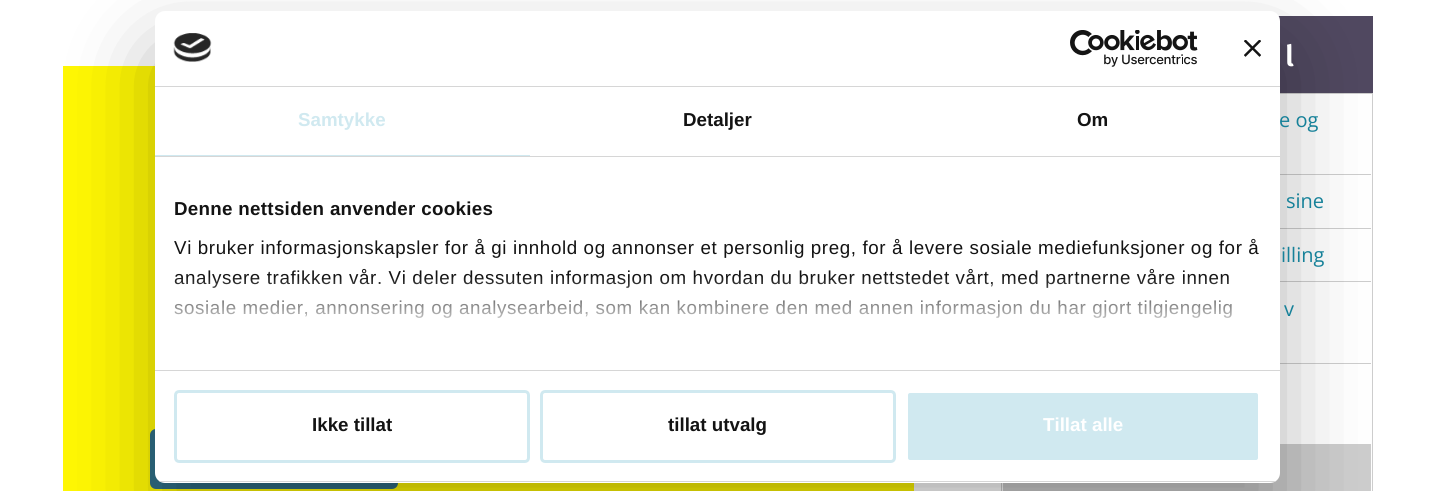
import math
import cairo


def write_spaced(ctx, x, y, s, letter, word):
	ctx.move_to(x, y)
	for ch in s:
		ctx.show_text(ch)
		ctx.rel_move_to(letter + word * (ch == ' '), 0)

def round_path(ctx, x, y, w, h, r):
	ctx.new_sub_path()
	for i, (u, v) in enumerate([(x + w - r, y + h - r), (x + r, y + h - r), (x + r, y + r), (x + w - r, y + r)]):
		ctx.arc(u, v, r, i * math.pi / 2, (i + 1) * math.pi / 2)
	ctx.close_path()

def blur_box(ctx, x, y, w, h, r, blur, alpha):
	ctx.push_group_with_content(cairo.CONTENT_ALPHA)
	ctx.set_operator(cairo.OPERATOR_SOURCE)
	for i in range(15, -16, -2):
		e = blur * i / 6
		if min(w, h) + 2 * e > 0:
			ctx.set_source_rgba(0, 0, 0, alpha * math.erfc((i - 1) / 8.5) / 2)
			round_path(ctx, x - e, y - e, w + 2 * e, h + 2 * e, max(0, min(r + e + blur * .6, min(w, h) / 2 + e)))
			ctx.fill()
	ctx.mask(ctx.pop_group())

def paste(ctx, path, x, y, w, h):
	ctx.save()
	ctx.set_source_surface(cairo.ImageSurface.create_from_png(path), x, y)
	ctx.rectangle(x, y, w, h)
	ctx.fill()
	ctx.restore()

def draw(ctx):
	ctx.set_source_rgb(1, 1, 1)
	ctx.paint()
	ctx.set_source_rgb(1, 0.965, 0.012)
	ctx.rectangle(63, 66, 851, 425)
	ctx.fill()
	ctx.set_source_rgb(0.184, 0.431, 0.525)
	round_path(ctx, 150, 429, 248, 60, 6)
	ctx.fill()
	ctx.set_source_rgb(0.314, 0.282, 0.376)
	ctx.rectangle(1278, 16, 95, 77)
	ctx.fill()
	ctx.rectangle(1001.5, 93.5, 371, 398)
	ctx.set_source_rgb(0.804, 0.804, 0.804)
	ctx.set_line_width(1)
	ctx.stroke()
	ctx.rectangle(1280, 174, 91, 1)
	ctx.rectangle(1280, 228, 91, 1)
	ctx.rectangle(1280, 281, 91, 1)
	ctx.rectangle(1280, 363, 91, 1)
	ctx.rectangle(1280, 444, 91, 1)
	ctx.rectangle(1003, 445, 368, 46)
	ctx.fill()
	ctx.set_source_rgb(0, 0, 0)
	blur_box(ctx, 155, 51, 1125, 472, 10, 42.5, 0.3)
	ctx.select_font_face('Open Sans')
	ctx.set_font_size(20)
	ctx.set_source_rgb(0.086, 0.506, 0.6)
	ctx.move_to(1279, 127)
	ctx.show_text('e og')
	ctx.set_source_rgb(1, 1, 1)
	round_path(ctx, 155, 11, 1125, 472, 10)
	ctx.fill()
	ctx.set_source_rgb(0.839, 0.839, 0.839)
	ctx.rectangle(155, 86, 1125, 1)
	ctx.fill()
	paste(ctx, 'media/1.png', 173, 33, 39, 29)
	paste(ctx, 'media/2.png', 1070, 30, 128, 37)
	paste(ctx, 'media/3.png', 1244, 40, 17, 17)
	ctx.rectangle(155, 156, 1125, 1)
	ctx.fill()
	ctx.set_source_rgb(0.816, 0.914, 0.941)
	ctx.rectangle(155, 155, 375, 1)
	ctx.fill()
	ctx.select_font_face('Liberation Sans', cairo.FONT_SLANT_NORMAL, cairo.FONT_WEIGHT_BOLD)
	ctx.set_font_size(18.75)
	ctx.move_to(298, 126)
	ctx.show_text('Samtykke')
	ctx.set_source_rgb(0.078, 0.078, 0.078)
	ctx.move_to(683, 126)
	ctx.show_text('Detaljer')
	ctx.move_to(1077, 126)
	ctx.show_text('Om')
	ctx.set_source_rgb(0.839, 0.839, 0.839)
	ctx.rectangle(155, 370, 1125, 1)
	ctx.fill()
	ctx.set_source_rgb(0.078, 0.078, 0.078)
	write_spaced(ctx, 174, 215, 'Denne nettsiden anvender cookies', 0.3, 0)
	ctx.select_font_face('Liberation Sans')
	for x, y, s in [
		(174, 254, 'Vi bruker informasjonskapsler for å gi innhold og annonser et personlig preg, for å levere sosiale mediefunksjoner og for å'),
		(174, 284, 'analysere trafikken vår. Vi deler dessuten informasjon om hvordan du bruker nettstedet vårt, med partnerne våre innen'),
		(174, 314, 'sosiale medier, annonsering og analysearbeid, som kan kombinere den med annen informasjon du har gjort tilgjengelig'),
	]:
		write_spaced(ctx, x, y, s, 0.62, 0)
	gradient = cairo.LinearGradient(709, 369, 709, 276)
	gradient.add_color_stop_rgba(0, 1, 1, 1, 1)
	gradient.add_color_stop_rgba(0.5, 1, 1, 1, 0.8)
	gradient.add_color_stop_rgba(1, 1, 1, 1, 0)
	ctx.set_source(gradient)
	ctx.rectangle(174, 277, 1058, 41)
	ctx.fill()
	ctx.save()
	round_path(ctx, 155, 11, 1125, 472, 10)
	ctx.clip()
	ctx.set_source_rgb(0.839, 0.839, 0.839)
	ctx.rectangle(155, 481, 1125, 1)
	ctx.fill()
	ctx.restore()
	round_path(ctx, 175.5, 391.5, 353, 70, 3.5)
	ctx.set_source_rgb(0.816, 0.914, 0.941)
	ctx.set_line_width(3)
	ctx.stroke()
	ctx.select_font_face('Liberation Sans', cairo.FONT_SLANT_NORMAL, cairo.FONT_WEIGHT_BOLD)
	ctx.set_source_rgb(0.078, 0.078, 0.078)
	ctx.move_to(312, 431)
	ctx.show_text('Ikke tillat')
	round_path(ctx, 541.5, 391.5, 353, 70, 3.5)
	ctx.set_source_rgb(0.816, 0.914, 0.941)
	ctx.stroke()
	ctx.set_source_rgb(0.078, 0.078, 0.078)
	ctx.move_to(668, 431)
	ctx.show_text('tillat utvalg')
	ctx.set_source_rgb(0.816, 0.914, 0.941)
	round_path(ctx, 906.5, 391.5, 353, 70, 3.5)
	ctx.fill_preserve()
	ctx.set_source_rgb(1, 1, 1)
	ctx.stroke()
	ctx.move_to(1043, 431)
	ctx.show_text('Tillat alle')
	ctx.select_font_face('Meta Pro', cairo.FONT_SLANT_NORMAL, cairo.FONT_WEIGHT_BOLD)
	ctx.set_font_size(30)
	ctx.move_to(1285, 66)
	ctx.show_text('l')
	ctx.select_font_face('Open Sans')
	ctx.set_font_size(20)
	ctx.set_source_rgb(0.086, 0.506, 0.6)
	for x, y, s in [
		(1286, 208, 'sine'),
		(1281, 262, 'illing'),
		(1284, 316, 'v'),
	]:
		ctx.move_to(x, y)
		ctx.show_text(s)


surface = cairo.ImageSurface(cairo.FORMAT_RGB24, 1434, 491)
ctx = cairo.Context(surface)
options = cairo.FontOptions()
options.set_hint_metrics(cairo.HINT_METRICS_OFF)
options.set_hint_style(cairo.HINT_STYLE_NONE)
ctx.set_font_options(options)
ctx.set_miter_limit(4)
draw(ctx)
surface.write_to_png('image.png')
